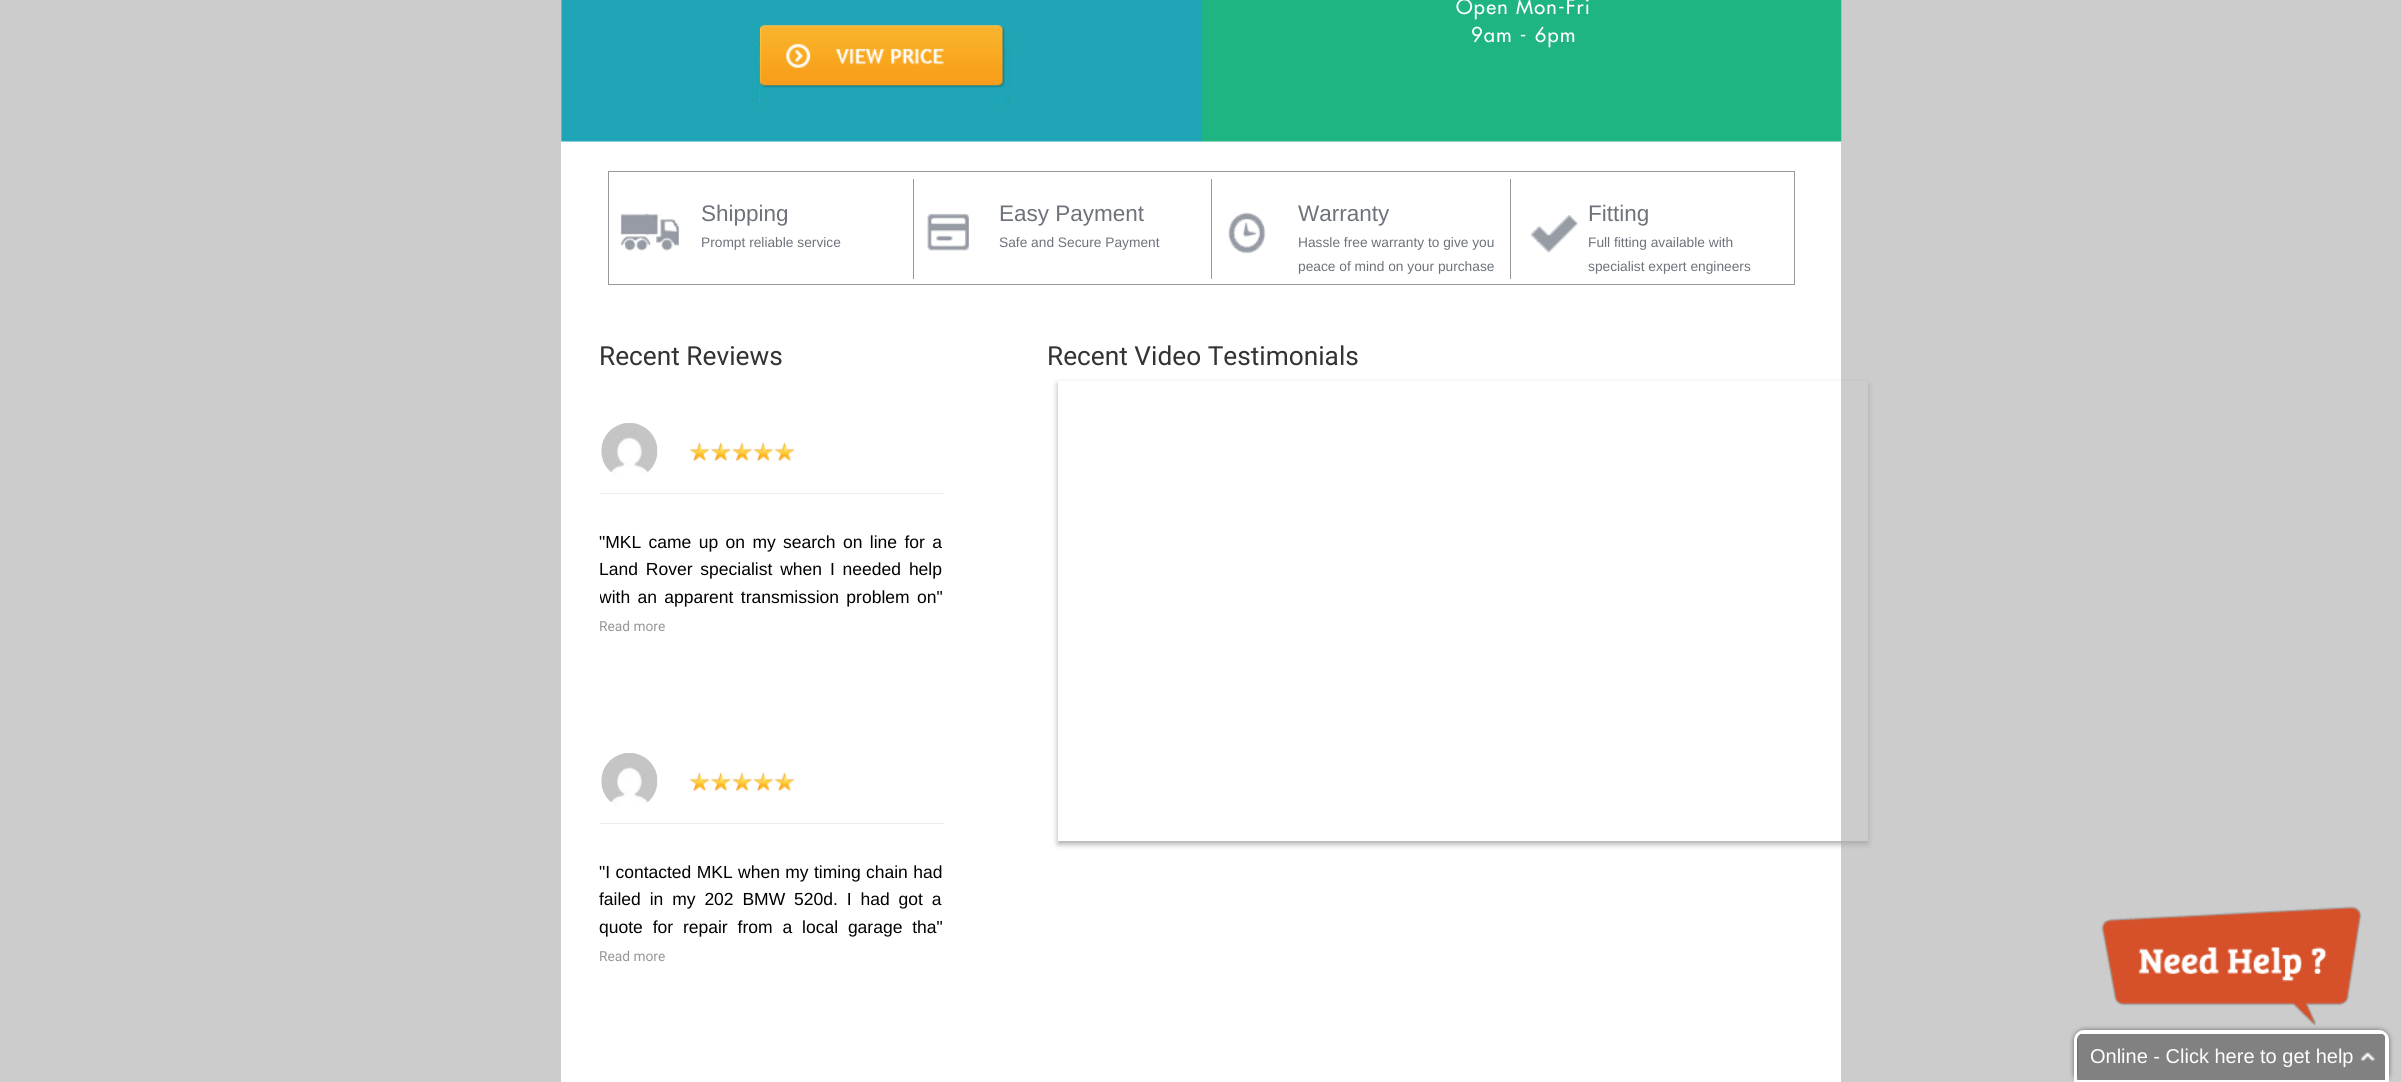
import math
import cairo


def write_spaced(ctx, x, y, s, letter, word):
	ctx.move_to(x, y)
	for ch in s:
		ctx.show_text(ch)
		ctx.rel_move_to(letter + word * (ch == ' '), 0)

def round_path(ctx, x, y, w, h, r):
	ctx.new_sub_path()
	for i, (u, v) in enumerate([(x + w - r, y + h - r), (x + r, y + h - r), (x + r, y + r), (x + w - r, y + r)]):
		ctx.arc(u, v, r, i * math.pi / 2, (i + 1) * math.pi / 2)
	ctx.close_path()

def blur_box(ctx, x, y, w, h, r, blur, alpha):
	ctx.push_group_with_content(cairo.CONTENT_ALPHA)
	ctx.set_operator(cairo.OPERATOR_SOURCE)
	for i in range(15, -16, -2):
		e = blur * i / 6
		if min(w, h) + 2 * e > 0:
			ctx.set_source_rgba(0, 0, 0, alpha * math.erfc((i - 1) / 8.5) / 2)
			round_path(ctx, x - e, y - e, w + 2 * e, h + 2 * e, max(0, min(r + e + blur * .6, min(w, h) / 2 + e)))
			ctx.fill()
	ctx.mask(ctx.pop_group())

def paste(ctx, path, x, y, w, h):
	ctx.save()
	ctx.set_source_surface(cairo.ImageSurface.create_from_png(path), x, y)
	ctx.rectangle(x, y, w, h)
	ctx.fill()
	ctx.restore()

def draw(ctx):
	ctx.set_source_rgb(0.8, 0.8, 0.8)
	ctx.paint()
	ctx.set_source_rgb(1, 1, 1)
	ctx.rectangle(561, 0, 1280, 1082)
	ctx.fill()
	paste(ctx, 'media/1.png', 561, 0, 1281, 142)
	ctx.set_source_rgb(0.122, 0.647, 0.71)
	ctx.rectangle(760, 31, 245, 76)
	ctx.fill()
	paste(ctx, 'media/2.png', 760, 25, 245, 63)
	ctx.select_font_face('Futura Medium')
	ctx.set_font_size(20)
	ctx.set_source_rgb(1, 1, 1)
	write_spaced(ctx, 1456, 14, 'Open Mon-Fri', 1.25, 0)
	write_spaced(ctx, 1471, 42, '9am - 6pm', 1.25, 0)
	ctx.rectangle(608.5, 171.5, 1186, 113)
	ctx.set_source_rgb(0.6, 0.6, 0.6)
	ctx.set_line_width(1)
	ctx.stroke()
	ctx.rectangle(913, 179, 1, 100)
	ctx.fill()
	paste(ctx, 'media/3.png', 620, 213, 60, 38)
	ctx.select_font_face('Liberation Sans')
	ctx.set_font_size(22.5)
	ctx.set_source_rgb(0.427, 0.447, 0.482)
	ctx.move_to(701, 221)
	ctx.show_text('Shipping')
	ctx.set_font_size(13.75)
	ctx.move_to(701, 247)
	ctx.show_text('Prompt reliable service')
	ctx.set_source_rgb(0.6, 0.6, 0.6)
	ctx.rectangle(1211, 179, 1, 100)
	ctx.fill()
	paste(ctx, 'media/4.png', 927, 213, 42, 38)
	ctx.set_font_size(22.5)
	ctx.set_source_rgb(0.427, 0.447, 0.482)
	ctx.move_to(999, 221)
	ctx.show_text('Easy Payment')
	ctx.set_font_size(13.75)
	ctx.move_to(999, 247)
	ctx.show_text('Safe and Secure Payment')
	ctx.set_source_rgb(0.6, 0.6, 0.6)
	ctx.rectangle(1510, 179, 1, 100)
	ctx.fill()
	paste(ctx, 'media/5.png', 1228, 212, 38, 41)
	ctx.set_font_size(22.5)
	ctx.set_source_rgb(0.427, 0.447, 0.482)
	ctx.move_to(1298, 221)
	ctx.show_text('Warranty')
	ctx.set_font_size(13.75)
	ctx.move_to(1298, 247)
	ctx.show_text('Hassle free warranty to give you')
	ctx.move_to(1298, 271)
	ctx.show_text('peace of mind on your purchase')
	paste(ctx, 'media/6.png', 1530, 215, 48, 38)
	ctx.set_font_size(22.5)
	ctx.move_to(1588, 221)
	ctx.show_text('Fitting')
	ctx.set_font_size(13.75)
	ctx.move_to(1588, 247)
	ctx.show_text('Full fitting available with')
	ctx.move_to(1588, 271)
	ctx.show_text('specialist expert engineers')
	ctx.select_font_face('Roboto')
	ctx.set_font_size(26.25)
	ctx.set_source_rgb(0.2, 0.2, 0.2)
	ctx.move_to(599, 365)
	ctx.show_text('Recent Reviews')
	paste(ctx, 'media/7.png', 601, 423, 57, 52)
	ctx.set_source_rgb(0.929, 0.929, 0.929)
	ctx.rectangle(600, 493, 344, 1)
	ctx.fill()
	paste(ctx, 'media/8.png', 689, 442, 106, 19)
	ctx.select_font_face('Liberation Sans')
	ctx.set_font_size(17.5)
	ctx.set_source_rgb(0, 0, 0)
	write_spaced(ctx, 599, 548, '"MKL came up on my search on line for a', 0, 2.5)
	write_spaced(ctx, 599, 575, 'Land Rover specialist when I needed help', 0, 3)
	ctx.save()
	ctx.rectangle(600, 515, 344, 139)
	ctx.clip()
	write_spaced(ctx, 599, 603, 'with an apparent transmission problem on"', 0, 2.5)
	ctx.restore()
	ctx.select_font_face('Roboto')
	ctx.set_font_size(13.75)
	ctx.set_source_rgb(0.588, 0.588, 0.588)
	ctx.move_to(599, 631)
	ctx.show_text('Read more')
	paste(ctx, 'media/9.png', 601, 753, 57, 52)
	ctx.set_source_rgb(0.929, 0.929, 0.929)
	ctx.rectangle(600, 823, 344, 1)
	ctx.fill()
	paste(ctx, 'media/8.png', 689, 772, 106, 19)
	ctx.select_font_face('Liberation Sans')
	ctx.set_font_size(17.5)
	ctx.set_source_rgb(0, 0, 0)
	write_spaced(ctx, 599, 878, '"I contacted MKL when my timing chain had', 0, 0.5)
	write_spaced(ctx, 599, 905, 'failed in my 202 BMW 520d. I had got a', 0, 4)
	write_spaced(ctx, 599, 933, 'quote for repair from a local garage tha"', 0, 5)
	ctx.select_font_face('Roboto')
	ctx.set_font_size(13.75)
	ctx.set_source_rgb(0.588, 0.588, 0.588)
	ctx.move_to(599, 961)
	ctx.show_text('Read more')
	ctx.set_font_size(26.25)
	ctx.set_source_rgb(0.2, 0.2, 0.2)
	ctx.move_to(1047, 365)
	ctx.show_text('Recent Video Testimonials')
	ctx.save()
	ctx.set_fill_rule(cairo.FILL_RULE_EVEN_ODD)
	ctx.new_path()
	ctx.move_to(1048, 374)
	ctx.line_to(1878, 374)
	ctx.line_to(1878, 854)
	ctx.line_to(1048, 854)
	ctx.close_path()
	ctx.move_to(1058, 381)
	ctx.line_to(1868, 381)
	ctx.line_to(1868, 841)
	ctx.line_to(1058, 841)
	ctx.close_path()
	ctx.clip()
	ctx.set_source_rgb(0.667, 0.667, 0.667)
	blur_box(ctx, 1058, 384, 810, 460, 0, 3, 1)
	ctx.restore()
	paste(ctx, 'media/10.png', 2101, 906, 261, 120)
	ctx.set_source_rgb(0.4, 0.4, 0.4)
	blur_box(ctx, 2074, 1030, 315, 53, 10, 2.5, 1)
	ctx.set_source_rgb(0.506, 0.506, 0.506)
	ctx.new_path()
	ctx.move_to(2084, 1034)
	ctx.line_to(2379, 1034)
	ctx.curve_to(2382.5, 1034, 2385, 1036.5, 2385, 1040)
	ctx.line_to(2385, 1080)
	ctx.line_to(2078, 1080)
	ctx.line_to(2078, 1040)
	ctx.curve_to(2078, 1036.5, 2080.5, 1034, 2084, 1034)
	ctx.close_path()
	ctx.fill()
	paste(ctx, 'media/11.png', 2361, 1052, 15, 10)
	ctx.new_path()
	ctx.move_to(2084, 1031.5)
	ctx.line_to(2379, 1031.5)
	ctx.curve_to(2383.5, 1031.5, 2387.5, 1035.5, 2387.5, 1040)
	ctx.line_to(2387.5, 1081.5)
	ctx.line_to(2075.5, 1081.5)
	ctx.line_to(2075.5, 1040)
	ctx.curve_to(2075.5, 1035.5, 2079.5, 1031.5, 2084, 1031.5)
	ctx.close_path()
	ctx.set_source_rgb(1, 1, 1)
	ctx.set_line_width(3)
	ctx.stroke()
	ctx.rectangle(2079, 1033, 305, 1)
	ctx.fill()
	ctx.rectangle(2385, 1035, 1, 47)
	ctx.fill()
	ctx.select_font_face('Liberation Sans')
	ctx.set_font_size(20)
	ctx.move_to(2090, 1063)
	ctx.show_text('Online - Click here to get help')


surface = cairo.ImageSurface(cairo.FORMAT_RGB24, 2401, 1082)
ctx = cairo.Context(surface)
options = cairo.FontOptions()
options.set_hint_metrics(cairo.HINT_METRICS_OFF)
options.set_hint_style(cairo.HINT_STYLE_NONE)
ctx.set_font_options(options)
ctx.set_miter_limit(4)
draw(ctx)
surface.write_to_png('image.png')
